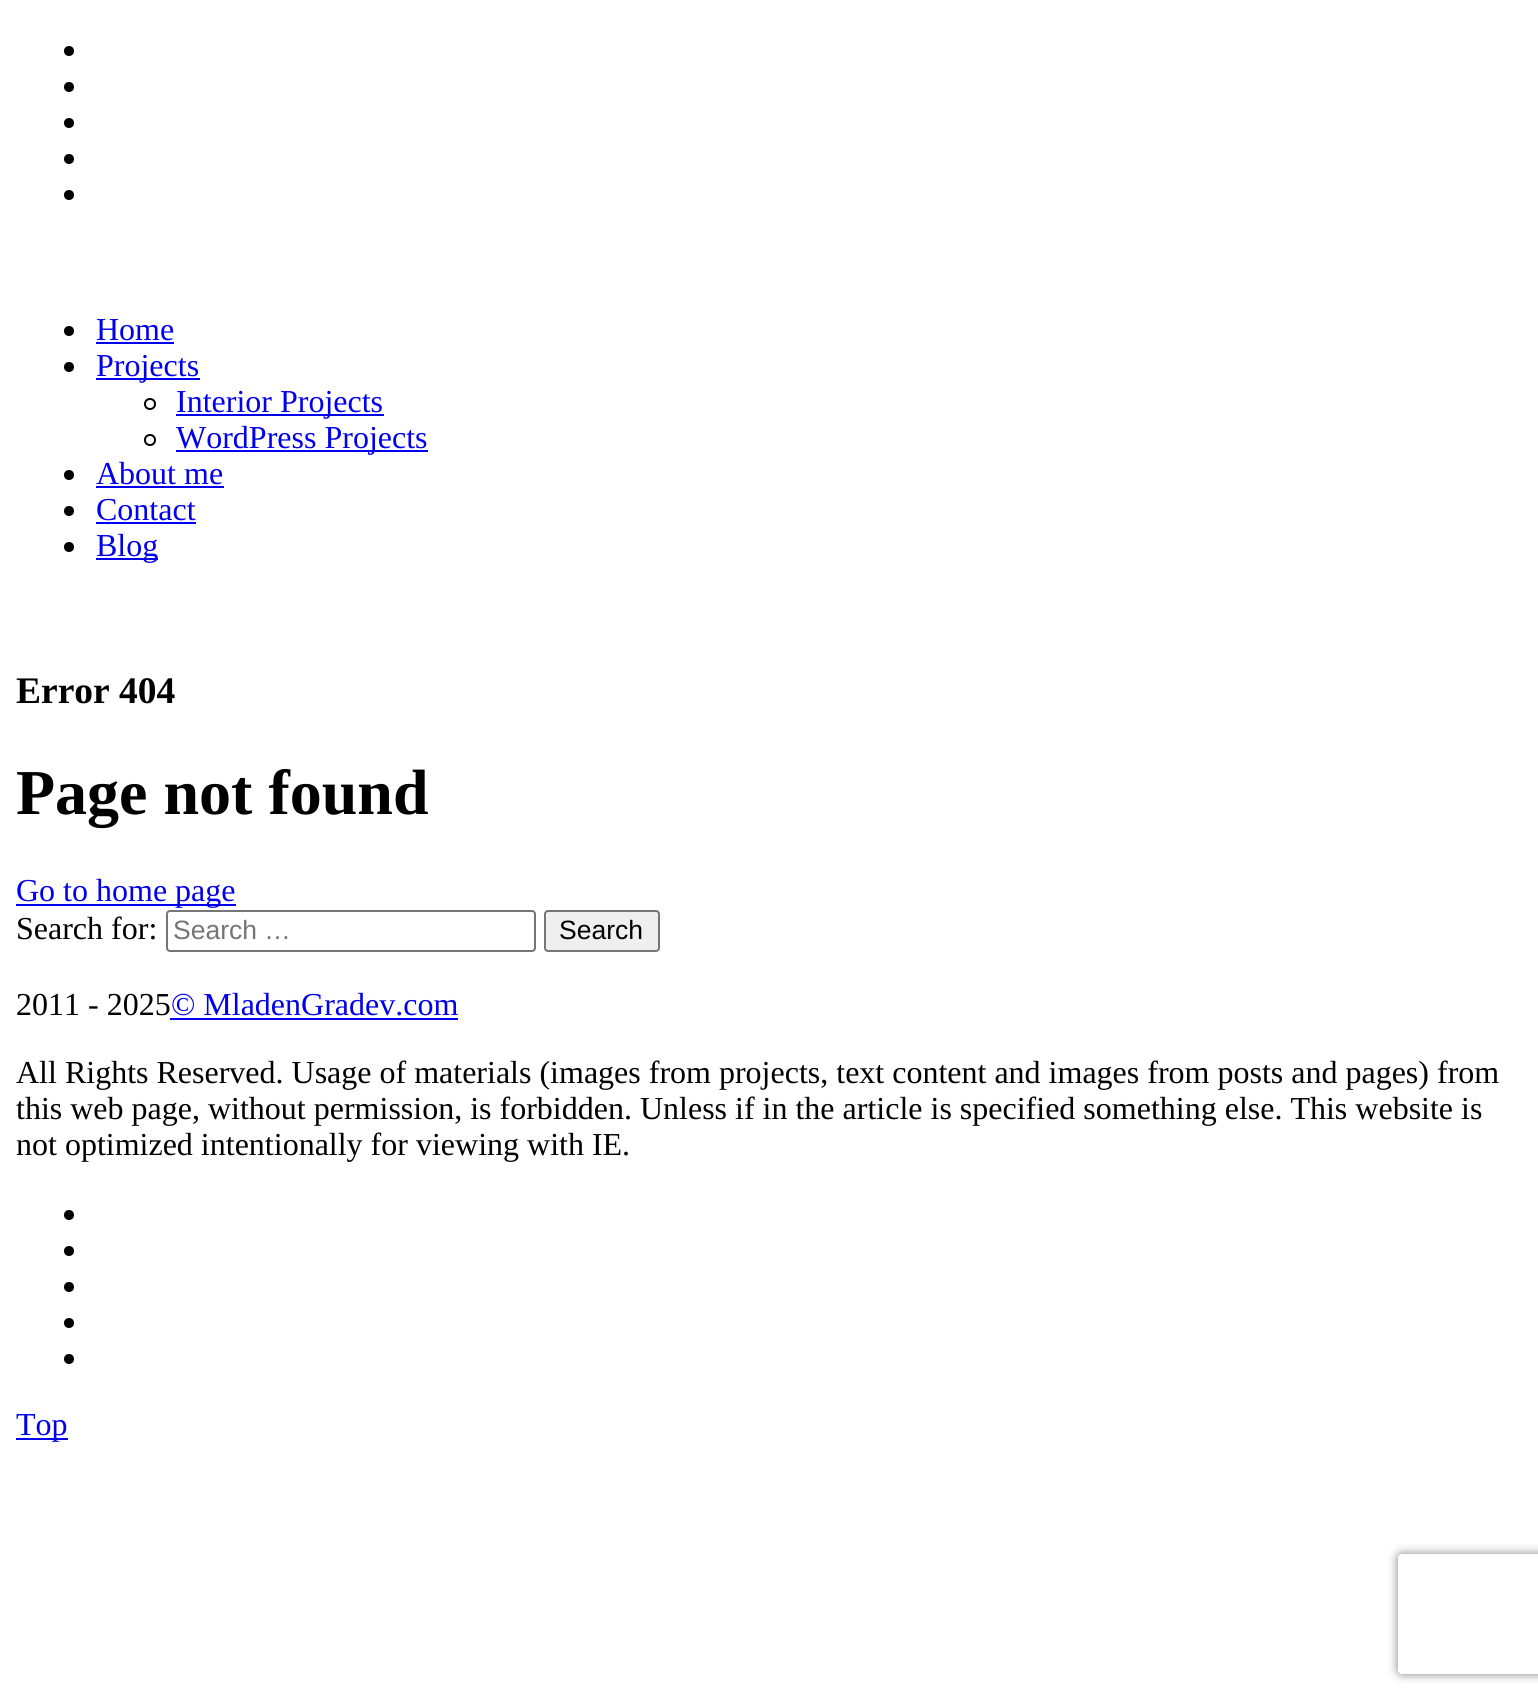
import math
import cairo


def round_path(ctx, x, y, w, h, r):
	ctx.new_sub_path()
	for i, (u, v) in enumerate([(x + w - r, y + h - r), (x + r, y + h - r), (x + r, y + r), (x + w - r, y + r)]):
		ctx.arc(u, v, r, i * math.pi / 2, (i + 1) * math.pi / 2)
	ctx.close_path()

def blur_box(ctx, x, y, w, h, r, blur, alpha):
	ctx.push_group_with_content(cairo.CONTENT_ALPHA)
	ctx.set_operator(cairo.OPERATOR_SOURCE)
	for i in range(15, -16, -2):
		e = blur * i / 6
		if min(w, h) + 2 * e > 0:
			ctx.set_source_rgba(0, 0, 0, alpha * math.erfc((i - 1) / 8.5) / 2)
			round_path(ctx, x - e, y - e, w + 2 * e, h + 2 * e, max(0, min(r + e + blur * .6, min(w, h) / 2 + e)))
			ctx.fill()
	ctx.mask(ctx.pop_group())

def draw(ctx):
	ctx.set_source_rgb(1, 1, 1)
	ctx.paint()
	ctx.set_source_rgb(0, 0, 0)
	ctx.arc(69, 51, 5, 0, 2 * math.pi)
	ctx.fill()
	ctx.arc(69, 87, 5, 0, 2 * math.pi)
	ctx.fill()
	ctx.arc(69, 123, 5, 0, 2 * math.pi)
	ctx.fill()
	ctx.arc(69, 159, 5, 0, 2 * math.pi)
	ctx.fill()
	ctx.arc(69, 195, 5, 0, 2 * math.pi)
	ctx.fill()
	ctx.arc(69, 331, 5, 0, 2 * math.pi)
	ctx.fill()
	ctx.select_font_face('Liberation Serif')
	ctx.set_font_size(32)
	ctx.set_source_rgb(0, 0, 0.933)
	ctx.move_to(96, 340)
	ctx.show_text('Home')
	ctx.rectangle(96, 342, 78, 2)
	ctx.fill()
	ctx.set_source_rgb(0, 0, 0)
	ctx.arc(69, 367, 5, 0, 2 * math.pi)
	ctx.fill()
	ctx.set_source_rgb(0, 0, 0.933)
	ctx.rectangle(96, 378, 104, 2)
	ctx.fill()
	ctx.move_to(96, 376)
	ctx.show_text('Projects')
	ctx.new_path()
	ctx.arc(150, 404, 5, 0, 2 * math.pi)
	ctx.set_source_rgb(0, 0, 0)
	ctx.stroke()
	ctx.set_source_rgb(0, 0, 0.933)
	ctx.rectangle(176, 414, 208, 2)
	ctx.fill()
	ctx.move_to(176, 412)
	ctx.show_text('Interior Projects')
	ctx.new_path()
	ctx.arc(150, 440, 5, 0, 2 * math.pi)
	ctx.set_source_rgb(0, 0, 0)
	ctx.stroke()
	ctx.set_source_rgb(0, 0, 0.933)
	ctx.rectangle(176, 450, 252, 2)
	ctx.fill()
	ctx.move_to(176, 448)
	ctx.show_text('WordPress Projects')
	ctx.set_source_rgb(0, 0, 0)
	ctx.new_path()
	ctx.arc(69, 475, 5, 0, 2 * math.pi)
	ctx.fill()
	ctx.set_source_rgb(0, 0, 0.933)
	ctx.move_to(96, 484)
	ctx.show_text('About me')
	ctx.rectangle(96, 486, 128, 2)
	ctx.fill()
	ctx.set_source_rgb(0, 0, 0)
	ctx.arc(69, 511, 5, 0, 2 * math.pi)
	ctx.fill()
	ctx.set_source_rgb(0, 0, 0.933)
	ctx.move_to(96, 520)
	ctx.show_text('Contact')
	ctx.rectangle(96, 522, 100, 2)
	ctx.fill()
	ctx.set_source_rgb(0, 0, 0)
	ctx.arc(69, 547, 5, 0, 2 * math.pi)
	ctx.fill()
	ctx.set_source_rgb(0, 0, 0.933)
	ctx.rectangle(96, 558, 62, 2)
	ctx.fill()
	ctx.move_to(96, 556)
	ctx.show_text('Blog')
	ctx.select_font_face('Liberation Serif', cairo.FONT_SLANT_NORMAL, cairo.FONT_WEIGHT_BOLD)
	ctx.set_font_size(37.5)
	ctx.set_source_rgb(0, 0, 0)
	ctx.move_to(16, 703)
	ctx.show_text('Error 404')
	ctx.set_font_size(64)
	ctx.move_to(16, 814)
	ctx.show_text('Page not found')
	ctx.set_source_rgb(0, 0, 0.933)
	ctx.rectangle(16, 904, 220, 2)
	ctx.fill()
	ctx.select_font_face('Liberation Serif')
	ctx.set_font_size(32)
	ctx.move_to(16, 901)
	ctx.show_text('Go to home page')
	ctx.set_source_rgb(0, 0, 0)
	ctx.move_to(16, 939)
	ctx.show_text('Search for:')
	round_path(ctx, 167, 911, 368, 40, 3)
	ctx.set_source_rgb(0.463, 0.463, 0.463)
	ctx.stroke()
	ctx.select_font_face('Liberation Sans')
	ctx.set_font_size(26.5)
	ctx.set_source_rgb(0.459, 0.459, 0.459)
	ctx.move_to(173, 939)
	ctx.show_text('Search …')
	ctx.set_source_rgb(0.937, 0.937, 0.937)
	round_path(ctx, 545, 911, 114, 40, 3)
	ctx.fill_preserve()
	ctx.set_source_rgb(0.463, 0.463, 0.463)
	ctx.stroke()
	ctx.set_source_rgb(0, 0, 0)
	ctx.move_to(559, 939)
	ctx.show_text('Search')
	ctx.select_font_face('Liberation Serif')
	ctx.set_font_size(32)
	ctx.move_to(16, 1015)
	ctx.show_text('2011 - 2025')
	ctx.set_source_rgb(0, 0, 0.933)
	ctx.move_to(171, 1015)
	ctx.show_text('© MladenGradev.com')
	ctx.rectangle(170, 1018, 288, 2)
	ctx.fill()
	ctx.set_source_rgb(0, 0, 0)
	for x, y, s in [
		(16, 1083, 'All Rights Reserved. Usage of materials (images from projects, text content and images from posts and pages) from'),
		(16, 1119, 'this web page, without permission, is forbidden. Unless if in the article is specified something else. This website is'),
		(16, 1155, 'not optimized intentionally for viewing with IE.'),
	]:
		ctx.move_to(x, y)
		ctx.show_text(s)
	ctx.new_path()
	ctx.arc(69, 1215, 5, 0, 2 * math.pi)
	ctx.fill()
	ctx.arc(69, 1251, 5, 0, 2 * math.pi)
	ctx.fill()
	ctx.arc(69, 1287, 5, 0, 2 * math.pi)
	ctx.fill()
	ctx.arc(69, 1323, 5, 0, 2 * math.pi)
	ctx.fill()
	ctx.arc(69, 1359, 5, 0, 2 * math.pi)
	ctx.fill()
	ctx.set_source_rgb(0, 0, 0.933)
	ctx.rectangle(16, 1438, 52, 2)
	ctx.fill()
	ctx.move_to(16, 1435)
	ctx.show_text('Top')
	ctx.save()
	ctx.set_fill_rule(cairo.FILL_RULE_EVEN_ODD)
	ctx.new_path()
	ctx.move_to(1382, 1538)
	ctx.line_to(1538, 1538)
	ctx.line_to(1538, 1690)
	ctx.line_to(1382, 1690)
	ctx.close_path()
	ctx.move_to(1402, 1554)
	ctx.line_to(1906, 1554)
	ctx.curve_to(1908, 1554, 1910, 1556, 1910, 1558)
	ctx.line_to(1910, 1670)
	ctx.curve_to(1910, 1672, 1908, 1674, 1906, 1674)
	ctx.line_to(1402, 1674)
	ctx.curve_to(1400, 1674, 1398, 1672, 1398, 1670)
	ctx.line_to(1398, 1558)
	ctx.curve_to(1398, 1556, 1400, 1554, 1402, 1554)
	ctx.close_path()
	ctx.clip()
	ctx.set_source_rgb(0.502, 0.502, 0.502)
	blur_box(ctx, 1398, 1554, 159, 120, 4, 5, 1)
	ctx.restore()


surface = cairo.ImageSurface(cairo.FORMAT_RGB24, 1538, 1702)
ctx = cairo.Context(surface)
options = cairo.FontOptions()
options.set_hint_metrics(cairo.HINT_METRICS_OFF)
options.set_hint_style(cairo.HINT_STYLE_NONE)
ctx.set_font_options(options)
ctx.set_miter_limit(4)
draw(ctx)
surface.write_to_png('image.png')
